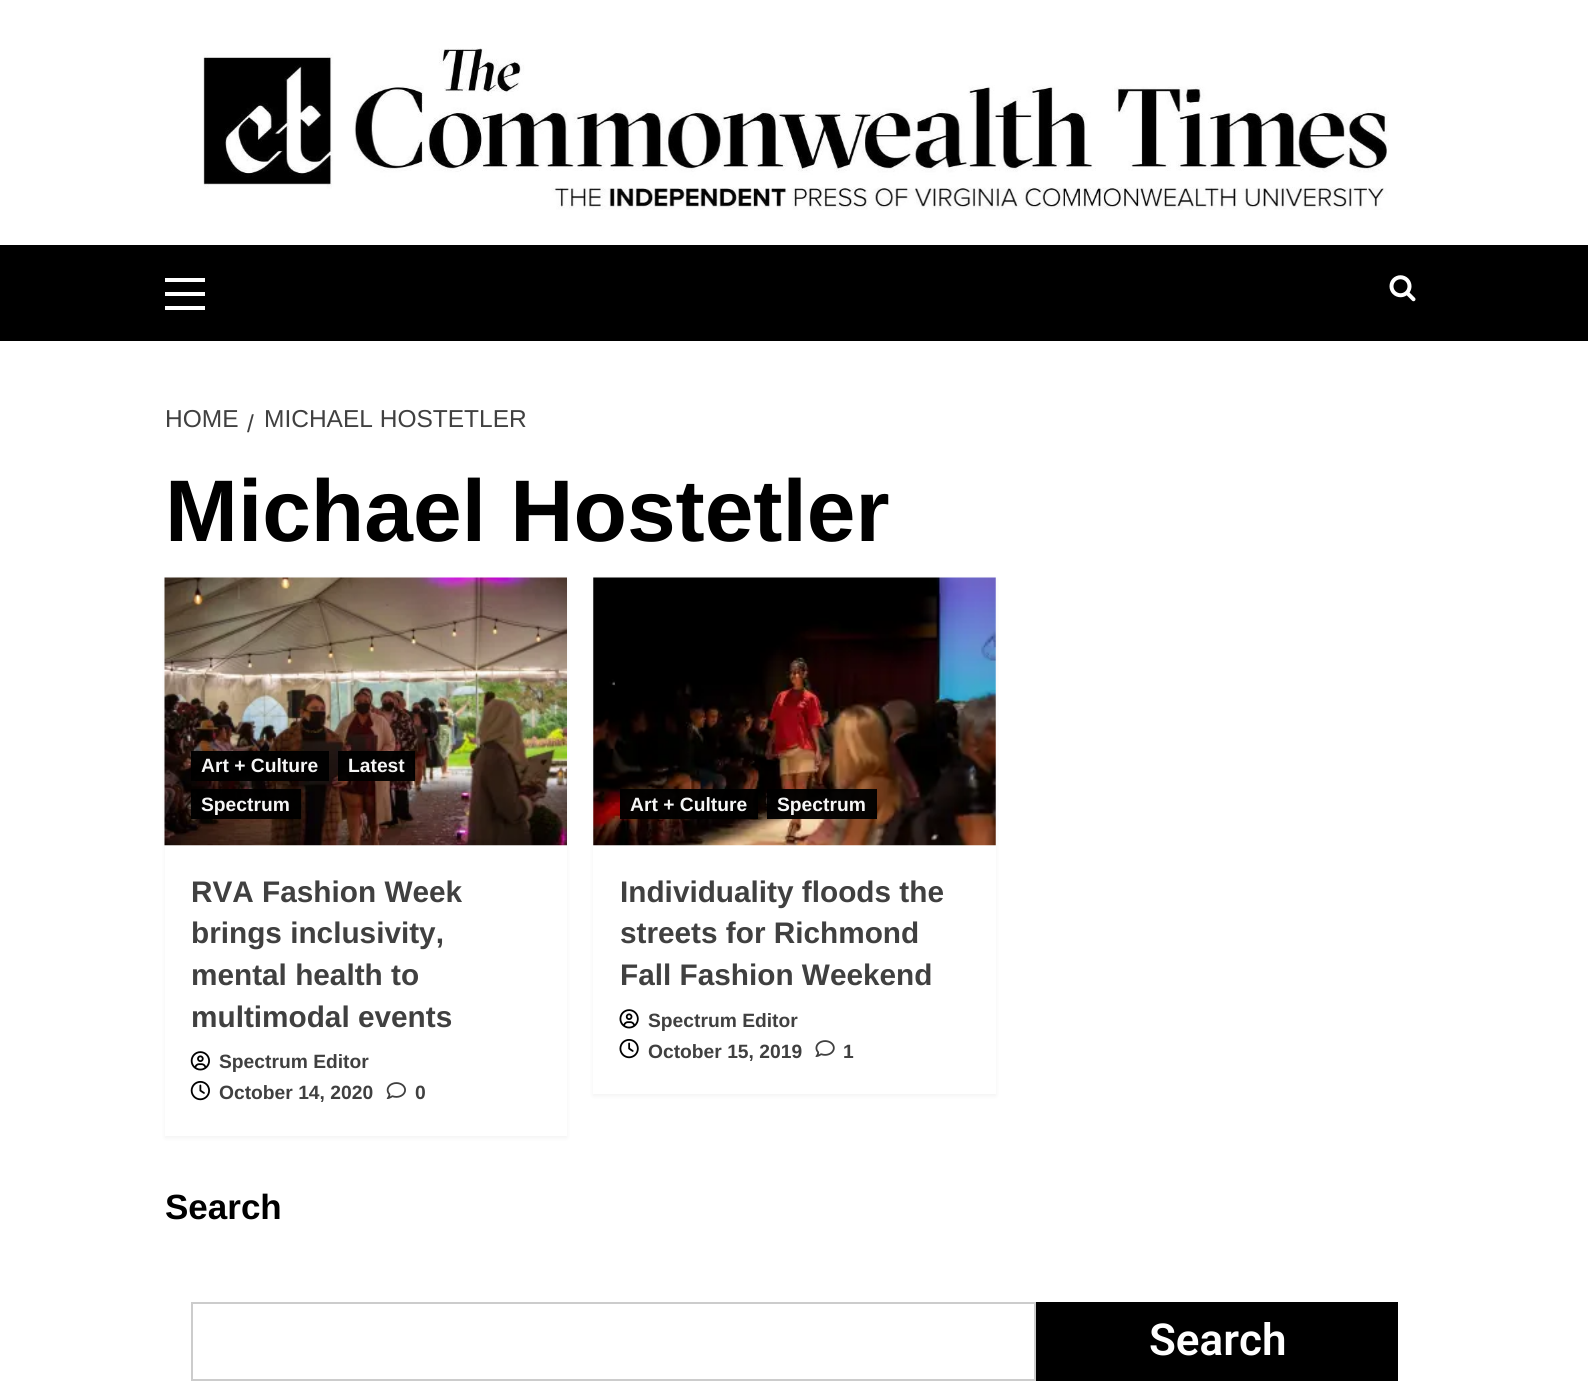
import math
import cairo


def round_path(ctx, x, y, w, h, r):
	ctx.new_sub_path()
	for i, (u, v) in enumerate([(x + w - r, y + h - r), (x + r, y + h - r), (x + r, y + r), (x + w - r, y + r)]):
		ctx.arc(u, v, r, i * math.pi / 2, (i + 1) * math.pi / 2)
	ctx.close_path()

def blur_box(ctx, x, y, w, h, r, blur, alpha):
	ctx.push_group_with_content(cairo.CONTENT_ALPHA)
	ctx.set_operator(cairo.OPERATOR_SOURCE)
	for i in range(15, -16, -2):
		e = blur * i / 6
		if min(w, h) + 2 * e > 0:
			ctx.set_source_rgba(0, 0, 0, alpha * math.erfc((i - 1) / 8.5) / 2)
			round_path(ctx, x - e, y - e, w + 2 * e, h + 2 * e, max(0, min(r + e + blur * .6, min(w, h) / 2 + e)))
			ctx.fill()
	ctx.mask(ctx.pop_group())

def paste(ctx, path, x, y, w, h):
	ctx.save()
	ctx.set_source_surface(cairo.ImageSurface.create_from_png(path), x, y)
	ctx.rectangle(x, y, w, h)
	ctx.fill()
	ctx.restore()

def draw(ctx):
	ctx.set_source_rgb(1, 1, 1)
	ctx.paint()
	paste(ctx, 'media/1.png', 203, 48, 1186, 162)
	ctx.set_source_rgb(0, 0, 0)
	ctx.rectangle(0, 245, 1588, 96)
	ctx.fill()
	ctx.set_source_rgb(1, 1, 1)
	ctx.rectangle(165, 292, 40, 4)
	ctx.rectangle(165, 278, 40, 4)
	ctx.rectangle(165, 306, 40, 4)
	ctx.fill()
	paste(ctx, 'media/2.png', 1389, 275, 27, 27)
	ctx.select_font_face('Liberation Sans')
	ctx.set_font_size(24.5)
	ctx.set_source_rgb(0.251, 0.251, 0.251)
	for x, y, s in [
		(165, 427, 'HOME'),
		(247, 432, '/'),
		(264, 427, 'MICHAEL HOSTETLER'),
	]:
		ctx.move_to(x, y)
		ctx.show_text(s)
	ctx.select_font_face('Liberation Sans', cairo.FONT_SLANT_NORMAL, cairo.FONT_WEIGHT_BOLD)
	ctx.set_font_size(87.5)
	ctx.set_source_rgb(0, 0, 0)
	ctx.move_to(165, 541)
	ctx.show_text('Michael Hostetler')
	ctx.set_source_rgb(0, 0, 0)
	blur_box(ctx, 165, 579, 402, 559, 0, 2, 0.05)
	ctx.set_source_rgb(1, 1, 1)
	ctx.rectangle(165, 845, 402, 291)
	ctx.fill()
	paste(ctx, 'media/3.png', 164, 577, 403, 269)
	ctx.set_source_rgba(0, 0, 0, 0.96)
	ctx.rectangle(191, 751, 138, 30)
	ctx.fill()
	ctx.set_font_size(19.25)
	ctx.set_source_rgb(0.961, 0.961, 0.961)
	ctx.move_to(201, 772)
	ctx.show_text('Art + Culture')
	ctx.set_source_rgba(0, 0, 0, 0.96)
	ctx.rectangle(338, 751, 77, 30)
	ctx.fill()
	ctx.set_source_rgb(0.961, 0.961, 0.961)
	ctx.move_to(348, 772)
	ctx.show_text('Latest')
	ctx.set_source_rgba(0, 0, 0, 0.96)
	ctx.rectangle(191, 789, 110, 30)
	ctx.fill()
	ctx.set_source_rgb(0.961, 0.961, 0.961)
	ctx.move_to(201, 811)
	ctx.show_text('Spectrum')
	ctx.set_font_size(29.75)
	ctx.set_source_rgb(0.251, 0.251, 0.251)
	for x, y, s in [
		(191, 902, 'RVA Fashion Week'),
		(191, 943, 'brings inclusivity,'),
		(191, 985, 'mental health to'),
		(191, 1027, 'multimodal events'),
	]:
		ctx.move_to(x, y)
		ctx.show_text(s)
	paste(ctx, 'media/4.png', 190, 1051, 20, 20)
	ctx.set_font_size(19.25)
	ctx.move_to(219, 1068)
	ctx.show_text('Spectrum Editor')
	paste(ctx, 'media/5.png', 190, 1081, 20, 20)
	ctx.move_to(219, 1099)
	ctx.show_text('October 14, 2020')
	paste(ctx, 'media/6.png', 386, 1082, 20, 17)
	ctx.move_to(415, 1099)
	ctx.show_text('0')
	ctx.set_source_rgb(0, 0, 0)
	blur_box(ctx, 593, 579, 403, 517, 0, 2, 0.05)
	ctx.set_source_rgb(1, 1, 1)
	ctx.rectangle(593, 578, 403, 516)
	ctx.fill()
	paste(ctx, 'media/7.png', 593, 577, 403, 269)
	ctx.set_source_rgba(0, 0, 0, 0.96)
	ctx.rectangle(620, 789, 138, 30)
	ctx.fill()
	ctx.set_source_rgb(0.961, 0.961, 0.961)
	ctx.move_to(630, 811)
	ctx.show_text('Art + Culture')
	ctx.set_source_rgba(0, 0, 0, 0.96)
	ctx.rectangle(767, 789, 110, 30)
	ctx.fill()
	ctx.set_source_rgb(0.961, 0.961, 0.961)
	ctx.move_to(777, 811)
	ctx.show_text('Spectrum')
	ctx.set_font_size(29.75)
	ctx.set_source_rgb(0.251, 0.251, 0.251)
	for x, y, s in [
		(620, 902, 'Individuality floods the'),
		(620, 943, 'streets for Richmond'),
		(620, 985, 'Fall Fashion Weekend'),
	]:
		ctx.move_to(x, y)
		ctx.show_text(s)
	paste(ctx, 'media/8.png', 619, 1009, 20, 20)
	ctx.set_font_size(19.25)
	ctx.move_to(648, 1027)
	ctx.show_text('Spectrum Editor')
	paste(ctx, 'media/9.png', 619, 1039, 20, 20)
	ctx.move_to(648, 1058)
	ctx.show_text('October 15, 2019')
	paste(ctx, 'media/10.png', 815, 1040, 20, 17)
	ctx.move_to(843, 1058)
	ctx.show_text('1')
	ctx.set_font_size(35)
	ctx.set_source_rgb(0, 0, 0)
	ctx.move_to(165, 1219)
	ctx.show_text('Search')
	ctx.rectangle(192, 1303, 843, 77)
	ctx.set_source_rgb(0.8, 0.8, 0.8)
	ctx.stroke()
	ctx.set_source_rgb(0, 0, 0)
	ctx.rectangle(1036, 1302, 362, 79)
	ctx.fill()
	ctx.select_font_face('Roboto SemiBold')
	ctx.set_font_size(44)
	ctx.set_source_rgb(1, 1, 1)
	ctx.move_to(1149, 1355)
	ctx.show_text('Search')


surface = cairo.ImageSurface(cairo.FORMAT_RGB24, 1588, 1386)
ctx = cairo.Context(surface)
options = cairo.FontOptions()
options.set_hint_metrics(cairo.HINT_METRICS_OFF)
options.set_hint_style(cairo.HINT_STYLE_NONE)
ctx.set_font_options(options)
ctx.set_miter_limit(4)
draw(ctx)
surface.write_to_png('image.png')
